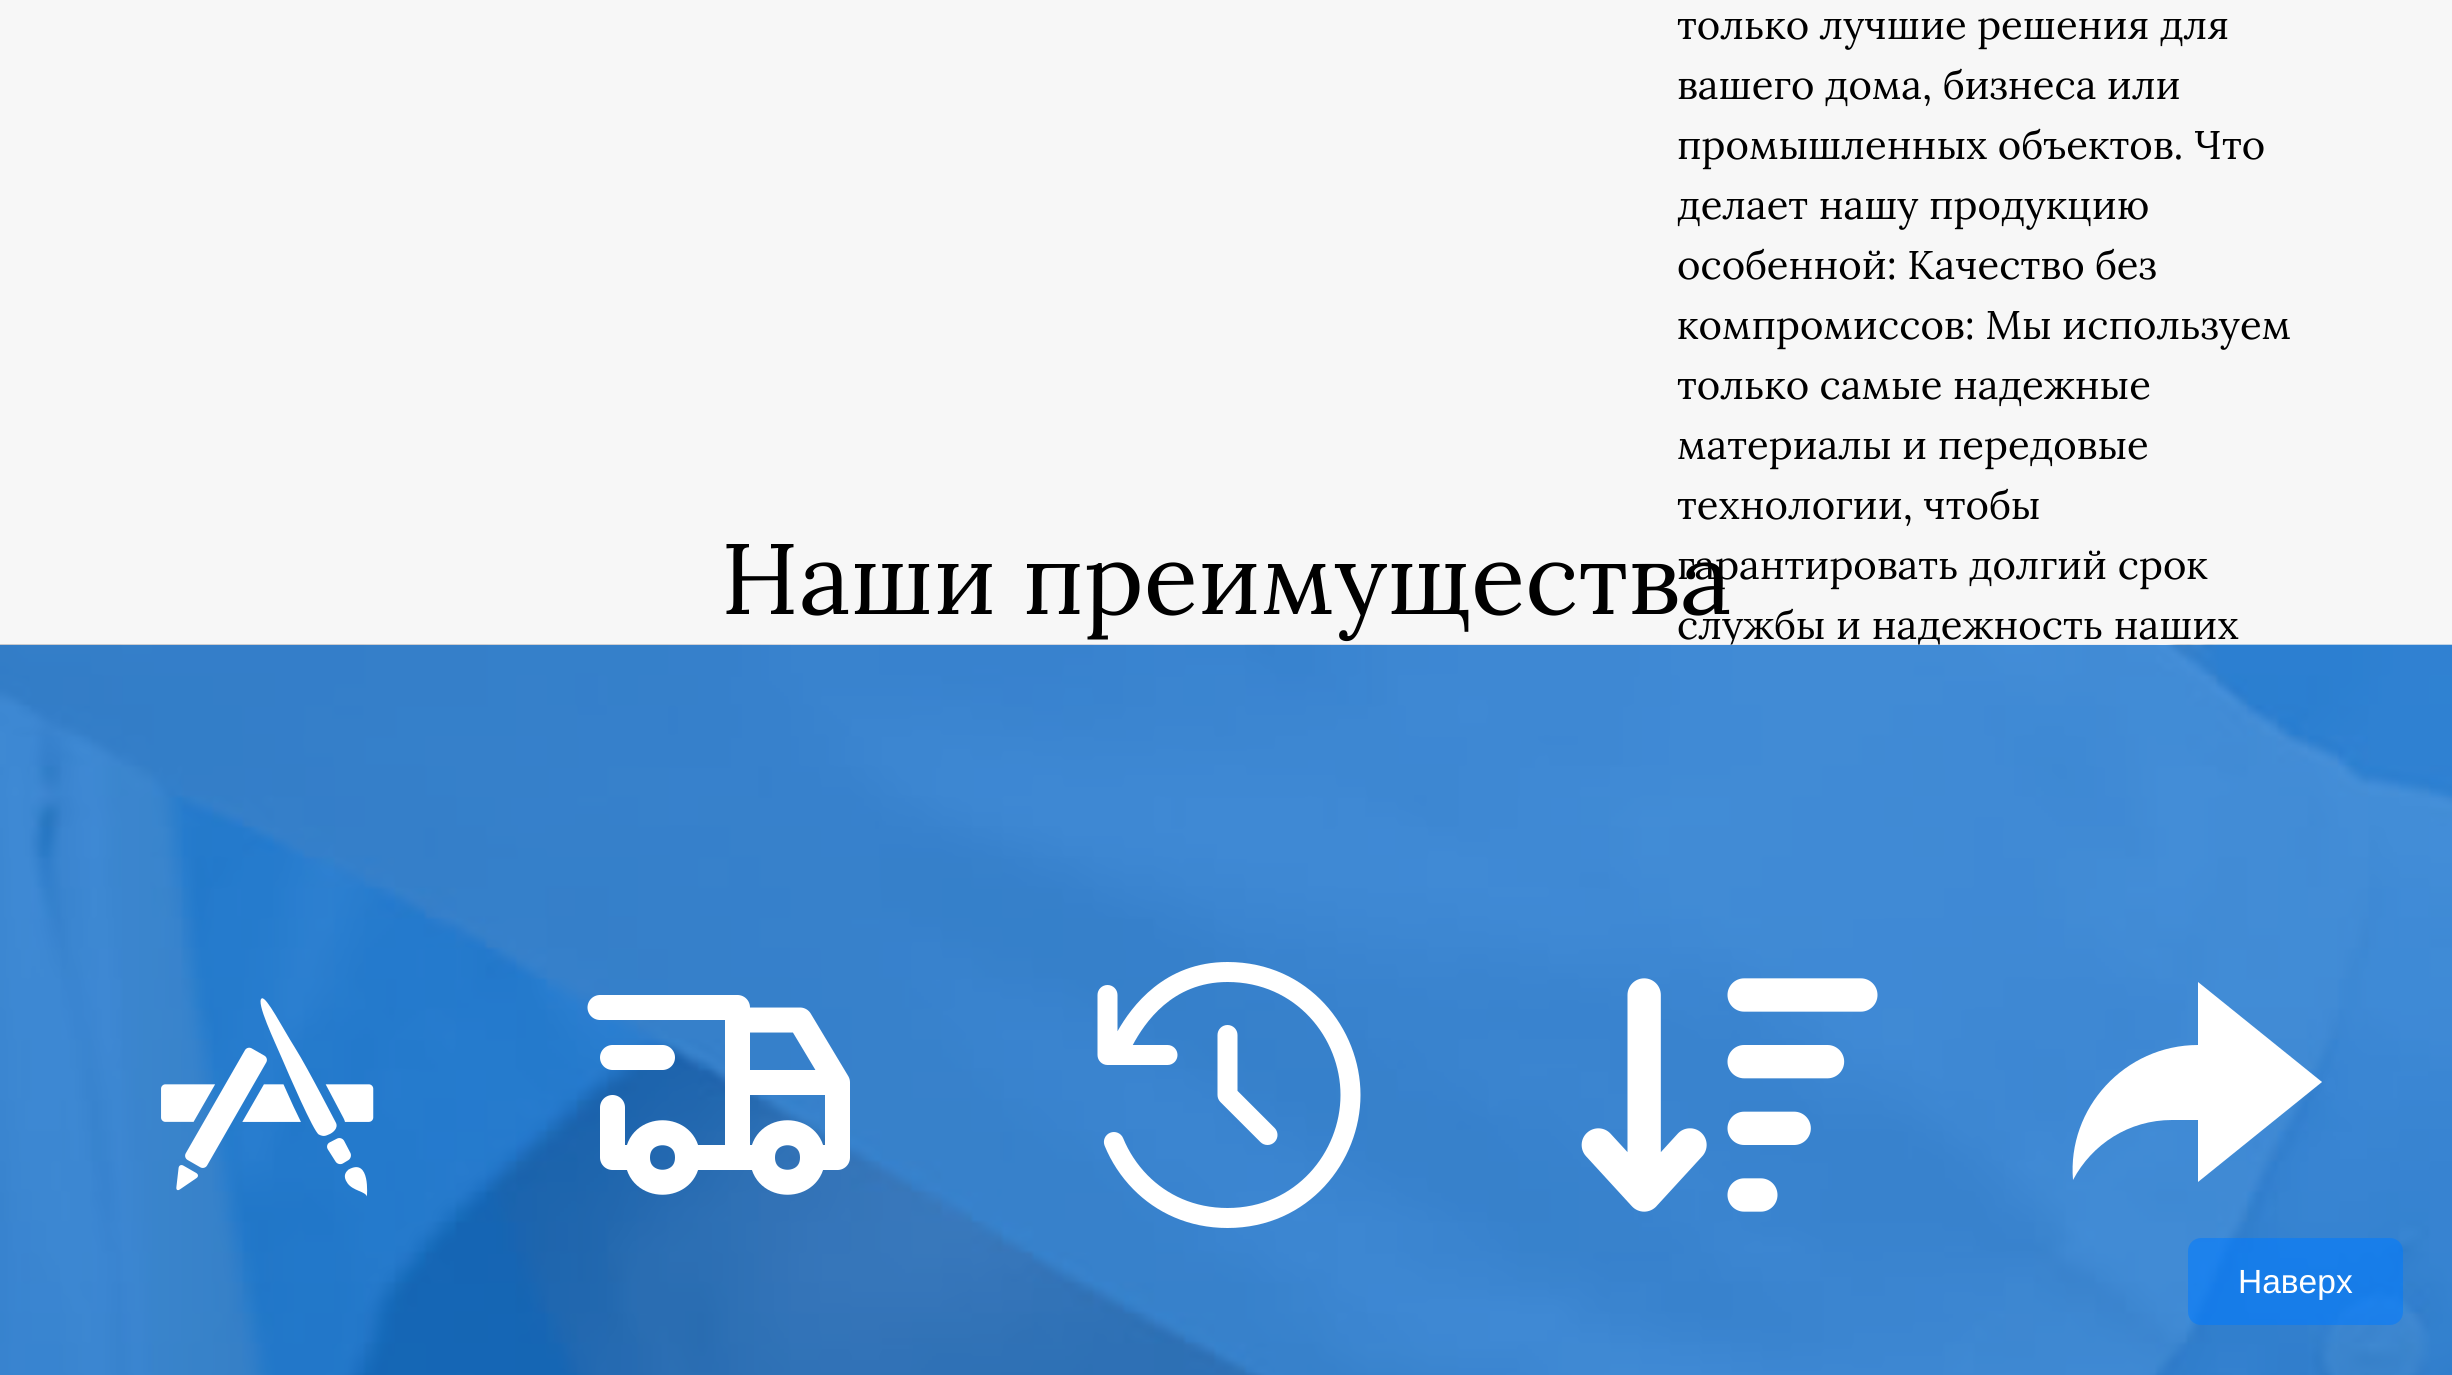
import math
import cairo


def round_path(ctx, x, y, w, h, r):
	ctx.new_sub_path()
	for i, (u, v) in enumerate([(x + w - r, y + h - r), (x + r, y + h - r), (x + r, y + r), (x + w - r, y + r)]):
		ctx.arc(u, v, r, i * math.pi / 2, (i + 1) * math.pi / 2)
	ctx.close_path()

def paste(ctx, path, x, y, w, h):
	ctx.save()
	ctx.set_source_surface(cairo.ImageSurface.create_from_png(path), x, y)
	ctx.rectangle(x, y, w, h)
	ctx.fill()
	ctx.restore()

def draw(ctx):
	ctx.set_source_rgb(0.965, 0.965, 0.965)
	ctx.paint()
	ctx.select_font_face('Lora')
	ctx.set_font_size(40)
	ctx.set_source_rgb(0, 0, 0)
	ctx.move_to(1677, 579)
	ctx.show_text('гарантировать долгий срок')
	ctx.move_to(1677, 639)
	ctx.show_text('службы и надежность наших')
	ctx.set_font_size(100)
	ctx.move_to(721, 614)
	ctx.show_text('Наши преимущества')
	ctx.set_font_size(40)
	for x, y, s in [
		(1677, 39, 'только лучшие решения для'),
		(1677, 99, 'вашего дома, бизнеса или'),
		(1677, 159, 'промышленных объектов. Что'),
		(1677, 219, 'делает нашу продукцию'),
		(1677, 279, 'особенной: Качество без'),
		(1677, 339, 'компромиссов: Мы используем'),
		(1677, 399, 'только самые надежные'),
		(1677, 459, 'материалы и передовые'),
		(1677, 519, 'технологии, чтобы'),
	]:
		ctx.move_to(x, y)
		ctx.show_text(s)
	paste(ctx, 'media/1.png', 0, 644, 2452, 731)
	paste(ctx, 'media/2.png', 161, 998, 213, 199)
	ctx.new_path()
	ctx.move_to(637.5, 1157.5)
	ctx.curve_to(637.5, 1190.5, 687.5, 1190.5, 687.5, 1157.5)
	ctx.curve_to(687.5, 1124.5, 637.5, 1124.5, 637.5, 1157.5)
	ctx.set_source_rgb(1, 1, 1)
	ctx.set_line_width(25)
	ctx.set_line_cap(cairo.LINE_CAP_ROUND)
	ctx.set_line_join(cairo.LINE_JOIN_ROUND)
	ctx.stroke()
	ctx.new_path()
	ctx.move_to(762.5, 1157.5)
	ctx.curve_to(762.5, 1190.5, 812.5, 1190.5, 812.5, 1157.5)
	ctx.curve_to(812.5, 1124.5, 762.5, 1124.5, 762.5, 1157.5)
	ctx.stroke()
	ctx.new_path()
	ctx.move_to(637.5, 1157.5)
	ctx.line_to(612.5, 1157.5)
	ctx.line_to(612.5, 1107.5)
	ctx.move_to(600, 1007.5)
	ctx.line_to(737.5, 1007.5)
	ctx.line_to(737.5, 1157.5)
	ctx.move_to(687.5, 1157.5)
	ctx.line_to(762.5, 1157.5)
	ctx.move_to(812.5, 1157.5)
	ctx.line_to(837.5, 1157.5)
	ctx.line_to(837.5, 1082.5)
	ctx.line_to(737.5, 1082.5)
	ctx.move_to(737.5, 1020)
	ctx.line_to(800, 1020)
	ctx.line_to(837.5, 1082.5)
	ctx.stroke()
	ctx.new_path()
	ctx.move_to(612.5, 1057.5)
	ctx.line_to(662.5, 1057.5)
	ctx.stroke()
	paste(ctx, 'media/3.png', 1097, 962, 264, 266)
	paste(ctx, 'media/4.png', 1581, 978, 297, 234)
	ctx.new_path()
	ctx.move_to(2198, 1120)
	ctx.line_to(2172, 1120)
	ctx.curve_to(2129, 1120, 2092, 1144, 2073, 1180)
	ctx.curve_to(2067, 1108, 2125, 1045, 2198, 1045)
	ctx.line_to(2198, 982)
	ctx.line_to(2322, 1082)
	ctx.line_to(2198, 1182)
	ctx.close_path()
	ctx.fill()
	ctx.set_source_rgba(0, 0.482, 1, 0.55)
	round_path(ctx, 2188, 1238, 215, 87, 13)
	ctx.fill()
	ctx.select_font_face('Liberation Sans')
	ctx.set_font_size(33.5)
	ctx.set_source_rgb(1, 1, 1)
	ctx.move_to(2238, 1293)
	ctx.show_text('Наверх')


surface = cairo.ImageSurface(cairo.FORMAT_RGB24, 2452, 1375)
ctx = cairo.Context(surface)
options = cairo.FontOptions()
options.set_hint_metrics(cairo.HINT_METRICS_OFF)
options.set_hint_style(cairo.HINT_STYLE_NONE)
ctx.set_font_options(options)
ctx.set_miter_limit(4)
draw(ctx)
surface.write_to_png('image.png')
